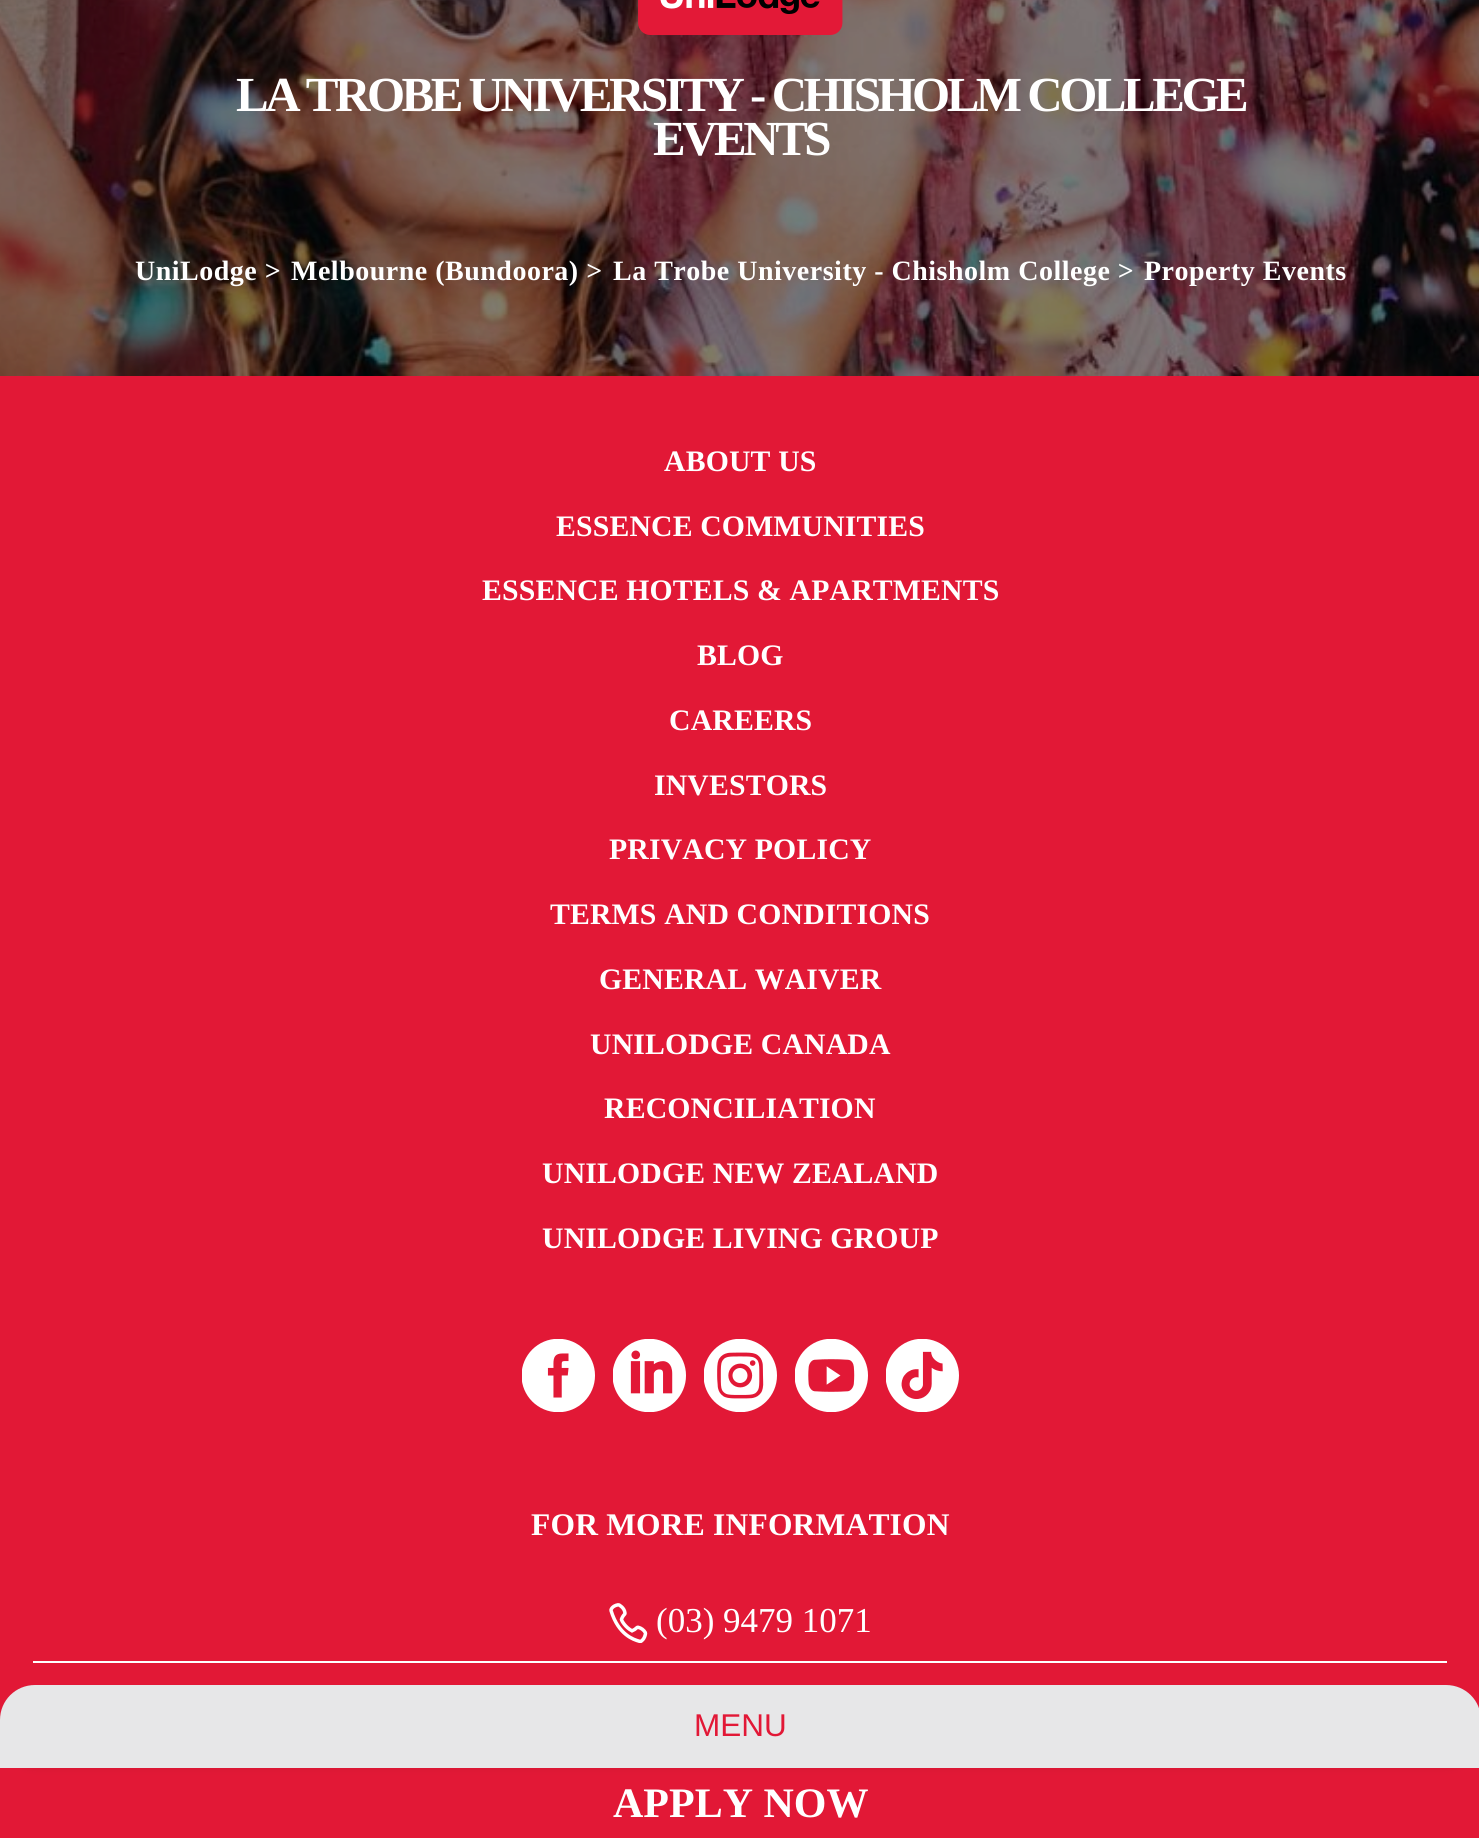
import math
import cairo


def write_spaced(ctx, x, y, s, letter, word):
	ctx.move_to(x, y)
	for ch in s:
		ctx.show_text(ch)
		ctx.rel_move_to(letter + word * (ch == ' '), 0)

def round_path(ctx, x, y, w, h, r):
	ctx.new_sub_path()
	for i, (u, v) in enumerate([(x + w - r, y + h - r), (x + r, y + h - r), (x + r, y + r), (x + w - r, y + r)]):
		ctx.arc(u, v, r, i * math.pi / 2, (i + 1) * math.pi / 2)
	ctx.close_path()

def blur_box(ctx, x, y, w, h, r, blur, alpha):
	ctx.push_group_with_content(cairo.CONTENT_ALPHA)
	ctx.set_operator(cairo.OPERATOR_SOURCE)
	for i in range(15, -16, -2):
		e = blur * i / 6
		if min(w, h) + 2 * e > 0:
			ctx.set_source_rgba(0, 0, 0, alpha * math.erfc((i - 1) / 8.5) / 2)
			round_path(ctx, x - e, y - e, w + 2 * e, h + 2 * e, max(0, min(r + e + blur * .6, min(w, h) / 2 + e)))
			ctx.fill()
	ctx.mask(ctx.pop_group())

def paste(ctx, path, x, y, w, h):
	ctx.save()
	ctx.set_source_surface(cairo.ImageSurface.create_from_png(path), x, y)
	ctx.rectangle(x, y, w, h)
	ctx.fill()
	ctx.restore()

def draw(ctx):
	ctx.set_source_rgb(0.886, 0.094, 0.212)
	ctx.paint()
	paste(ctx, 'media/2.png', 0, 0, 1479, 376)
	paste(ctx, 'media/1.png', 638, 0, 205, 35)
	ctx.select_font_face('Liberation Serif', cairo.FONT_SLANT_NORMAL, cairo.FONT_WEIGHT_BOLD)
	ctx.set_font_size(49)
	ctx.set_source_rgb(1, 1, 1)
	write_spaced(ctx, 236, 111, 'LA TROBE UNIVERSITY - CHISHOLM COLLEGE', -3.5, 0)
	write_spaced(ctx, 653, 155, 'EVENTS', -3.5, 0)
	ctx.set_font_size(28)
	for x, y, s in [
		(135, 280, 'UniLodge >'),
		(291, 280, 'Melbourne (Bundoora) >'),
		(613, 280, 'La Trobe University - Chisholm College >'),
		(1144, 280, 'Property Events'),
	]:
		write_spaced(ctx, x, y, s, 0.5, 0)
	ctx.set_font_size(29.75)
	for x, y, s in [
		(664, 471, 'ABOUT US'),
		(556, 536, 'ESSENCE COMMUNITIES'),
		(482, 600, 'ESSENCE HOTELS & APARTMENTS'),
		(697, 665, 'BLOG'),
		(669, 730, 'CAREERS'),
		(654, 795, 'INVESTORS'),
		(609, 859, 'PRIVACY POLICY'),
		(550, 924, 'TERMS AND CONDITIONS'),
		(599, 989, 'GENERAL WAIVER'),
		(590, 1054, 'UNILODGE CANADA'),
		(604, 1118, 'RECONCILIATION'),
		(542, 1183, 'UNILODGE NEW ZEALAND'),
		(542, 1248, 'UNILODGE LIVING GROUP'),
	]:
		write_spaced(ctx, x, y, s, 0.15, 0)
	paste(ctx, 'media/3.png', 522, 1339, 73, 73)
	paste(ctx, 'media/4.png', 613, 1339, 73, 73)
	paste(ctx, 'media/5.png', 704, 1339, 73, 73)
	paste(ctx, 'media/6.png', 795, 1339, 73, 73)
	paste(ctx, 'media/7.png', 886, 1339, 73, 73)
	ctx.set_font_size(31.5)
	write_spaced(ctx, 531, 1535, 'FOR MORE INFORMATION', 0.2, 0)
	paste(ctx, 'media/8.png', 609, 1603, 39, 40)
	ctx.select_font_face('Liberation Serif')
	ctx.set_font_size(35)
	ctx.move_to(656, 1632)
	ctx.show_text('(03) 9479 1071')
	ctx.rectangle(33, 1661, 1414, 2)
	ctx.fill()
	ctx.save()
	ctx.new_path()
	ctx.move_to(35, 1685)
	ctx.line_to(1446, 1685)
	ctx.curve_to(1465.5, 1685, 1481, 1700.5, 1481, 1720)
	ctx.line_to(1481, 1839)
	ctx.line_to(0, 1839)
	ctx.line_to(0, 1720)
	ctx.curve_to(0, 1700.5, 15.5, 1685, 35, 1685)
	ctx.close_path()
	ctx.clip()
	ctx.set_source_rgb(0, 0, 0)
	blur_box(ctx, 0, 1682, 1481, 82, 35, 5, 0.19)
	ctx.restore()
	ctx.set_source_rgb(0.906, 0.906, 0.91)
	ctx.new_path()
	ctx.move_to(35, 1685)
	ctx.line_to(1446, 1685)
	ctx.curve_to(1465.5, 1685, 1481, 1700.5, 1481, 1720)
	ctx.line_to(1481, 1768)
	ctx.line_to(0, 1768)
	ctx.line_to(0, 1720)
	ctx.curve_to(0, 1700.5, 15.5, 1685, 35, 1685)
	ctx.close_path()
	ctx.fill()
	ctx.select_font_face('Liberation Sans')
	ctx.set_font_size(31.5)
	ctx.set_source_rgb(0.886, 0.094, 0.212)
	ctx.move_to(694, 1736)
	ctx.show_text('MENU')
	ctx.select_font_face('Liberation Serif', cairo.FONT_SLANT_NORMAL, cairo.FONT_WEIGHT_BOLD)
	ctx.set_font_size(42)
	ctx.set_source_rgb(1, 1, 1)
	ctx.move_to(613, 1817)
	ctx.show_text('APPLY NOW')


surface = cairo.ImageSurface(cairo.FORMAT_RGB24, 1479, 1838)
ctx = cairo.Context(surface)
options = cairo.FontOptions()
options.set_hint_metrics(cairo.HINT_METRICS_OFF)
options.set_hint_style(cairo.HINT_STYLE_NONE)
ctx.set_font_options(options)
ctx.set_miter_limit(4)
draw(ctx)
surface.write_to_png('image.png')
